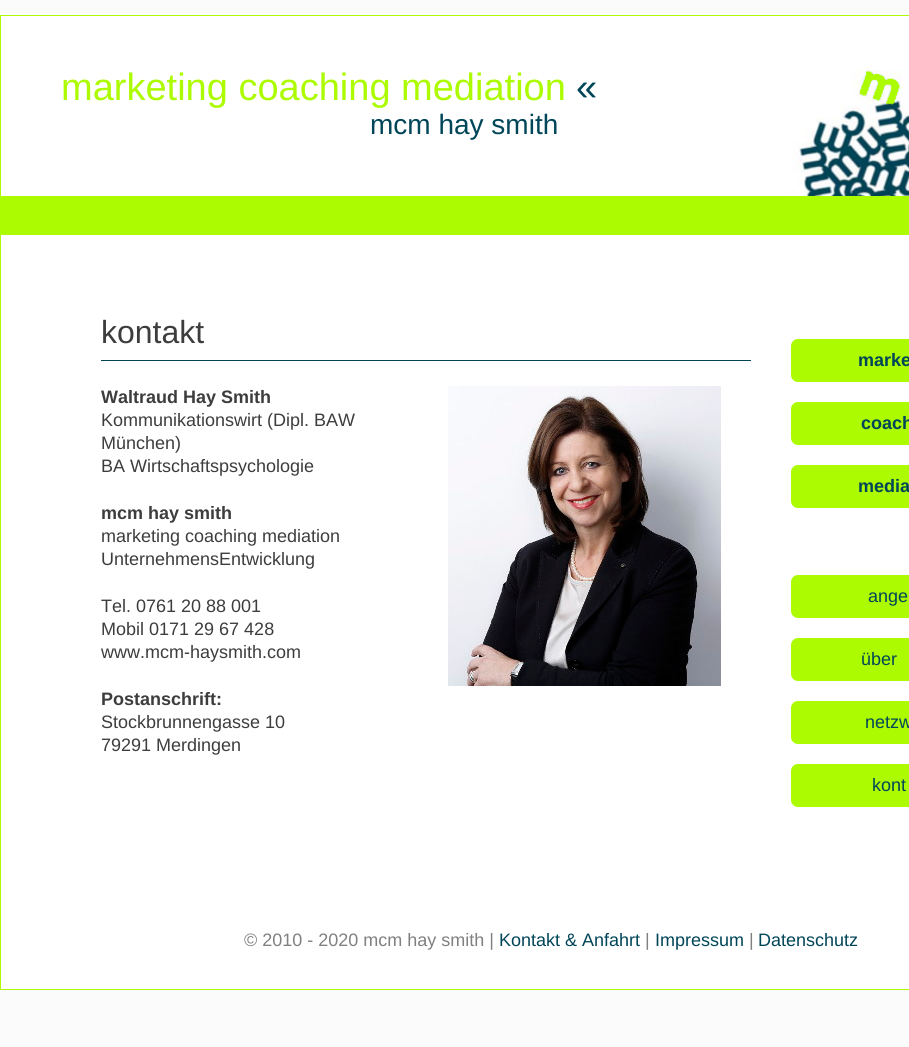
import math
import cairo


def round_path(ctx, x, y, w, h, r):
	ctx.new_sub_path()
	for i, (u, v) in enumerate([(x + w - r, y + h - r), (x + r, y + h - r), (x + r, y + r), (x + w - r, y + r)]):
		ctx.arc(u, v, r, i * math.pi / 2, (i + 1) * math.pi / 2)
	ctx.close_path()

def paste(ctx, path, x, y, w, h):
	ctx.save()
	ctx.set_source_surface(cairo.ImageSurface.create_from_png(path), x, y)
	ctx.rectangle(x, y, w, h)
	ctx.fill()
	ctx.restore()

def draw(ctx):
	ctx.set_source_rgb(0.984, 0.984, 0.984)
	ctx.paint()
	ctx.set_source_rgb(1, 1, 1)
	ctx.rectangle(0.5, 15.5, 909, 974)
	ctx.fill_preserve()
	ctx.set_source_rgb(0.675, 0.984, 0.004)
	ctx.set_line_width(1)
	ctx.stroke()
	paste(ctx, 'media/1.png', 791, 70, 118, 126)
	ctx.select_font_face('Liberation Sans')
	ctx.set_font_size(38)
	ctx.move_to(61, 100)
	ctx.show_text('marketing coaching mediation')
	ctx.set_source_rgb(0, 0.271, 0.345)
	ctx.move_to(576, 100)
	ctx.show_text('«')
	ctx.set_font_size(28)
	ctx.move_to(370, 134)
	ctx.show_text('mcm hay smith')
	ctx.set_source_rgb(0.675, 0.984, 0.004)
	ctx.rectangle(1, 196, 908, 39)
	ctx.fill()
	ctx.set_source_rgb(0, 0.271, 0.345)
	ctx.rectangle(101, 360, 650, 1)
	ctx.fill()
	ctx.set_font_size(32)
	ctx.set_source_rgb(0.239, 0.239, 0.239)
	ctx.move_to(101, 343)
	ctx.show_text('kontakt')
	ctx.select_font_face('Liberation Sans', cairo.FONT_SLANT_NORMAL, cairo.FONT_WEIGHT_BOLD)
	ctx.set_font_size(18)
	ctx.move_to(101, 403)
	ctx.show_text('Waltraud Hay Smith')
	ctx.select_font_face('Liberation Sans')
	for x, y, s in [
		(101, 426, 'Kommunikationswirt (Dipl. BAW'),
		(101, 449, 'München)'),
		(101, 472, 'BA Wirtschaftspsychologie'),
	]:
		ctx.move_to(x, y)
		ctx.show_text(s)
	paste(ctx, 'media/2.png', 448, 386, 273, 300)
	ctx.select_font_face('Liberation Sans', cairo.FONT_SLANT_NORMAL, cairo.FONT_WEIGHT_BOLD)
	ctx.move_to(101, 519)
	ctx.show_text('mcm hay smith')
	ctx.select_font_face('Liberation Sans')
	for x, y, s in [
		(101, 542, 'marketing coaching mediation'),
		(101, 565, 'UnternehmensEntwicklung'),
		(101, 612, 'Tel. 0761 20 88 001'),
		(101, 635, 'Mobil 0171 29 67 428'),
		(101, 658, 'www.mcm-haysmith.com'),
	]:
		ctx.move_to(x, y)
		ctx.show_text(s)
	ctx.select_font_face('Liberation Sans', cairo.FONT_SLANT_NORMAL, cairo.FONT_WEIGHT_BOLD)
	ctx.move_to(101, 705)
	ctx.show_text('Postanschrift:')
	ctx.select_font_face('Liberation Sans')
	ctx.move_to(101, 728)
	ctx.show_text('Stockbrunnengasse 10')
	ctx.move_to(101, 751)
	ctx.show_text('79291 Merdingen')
	ctx.set_source_rgb(0.675, 0.984, 0.004)
	round_path(ctx, 791, 339, 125, 43, 7)
	ctx.fill()
	ctx.select_font_face('Liberation Sans', cairo.FONT_SLANT_NORMAL, cairo.FONT_WEIGHT_BOLD)
	ctx.set_source_rgb(0, 0.271, 0.345)
	ctx.move_to(858, 366)
	ctx.show_text('marke')
	ctx.set_source_rgb(0.675, 0.984, 0.004)
	round_path(ctx, 791, 402, 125, 43, 7)
	ctx.fill()
	ctx.set_source_rgb(0, 0.271, 0.345)
	ctx.move_to(861, 429)
	ctx.show_text('coach')
	ctx.set_source_rgb(0.675, 0.984, 0.004)
	round_path(ctx, 791, 465, 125, 43, 7)
	ctx.fill()
	ctx.set_source_rgb(0, 0.271, 0.345)
	ctx.move_to(858, 492)
	ctx.show_text('media')
	ctx.set_source_rgb(0.675, 0.984, 0.004)
	round_path(ctx, 791, 575, 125, 43, 7)
	ctx.fill()
	ctx.select_font_face('Liberation Sans')
	ctx.set_source_rgb(0, 0.271, 0.345)
	ctx.move_to(868, 602)
	ctx.show_text('ange')
	ctx.set_source_rgb(0.675, 0.984, 0.004)
	round_path(ctx, 791, 638, 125, 43, 7)
	ctx.fill()
	ctx.set_source_rgb(0, 0.271, 0.345)
	ctx.move_to(861, 665)
	ctx.show_text('über')
	ctx.set_source_rgb(0.675, 0.984, 0.004)
	round_path(ctx, 791, 701, 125, 43, 7)
	ctx.fill()
	ctx.set_source_rgb(0, 0.271, 0.345)
	ctx.move_to(865, 728)
	ctx.show_text('netzw')
	ctx.set_source_rgb(0.675, 0.984, 0.004)
	round_path(ctx, 791, 764, 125, 43, 7)
	ctx.fill()
	ctx.set_source_rgb(0, 0.271, 0.345)
	ctx.move_to(872, 791)
	ctx.show_text('kont')
	ctx.set_source_rgb(0.502, 0.502, 0.502)
	ctx.move_to(244, 946)
	ctx.show_text('© 2010 - 2020 mcm hay smith |')
	ctx.set_source_rgb(0, 0.271, 0.345)
	ctx.move_to(499, 946)
	ctx.show_text('Kontakt & Anfahrt')
	ctx.set_source_rgb(0.502, 0.502, 0.502)
	ctx.move_to(645, 946)
	ctx.show_text('|')
	ctx.set_source_rgb(0, 0.271, 0.345)
	ctx.move_to(655, 946)
	ctx.show_text('Impressum')
	ctx.set_source_rgb(0.502, 0.502, 0.502)
	ctx.move_to(749, 946)
	ctx.show_text('|')
	ctx.set_source_rgb(0, 0.271, 0.345)
	ctx.move_to(758, 946)
	ctx.show_text('Datenschutz')


surface = cairo.ImageSurface(cairo.FORMAT_RGB24, 909, 1047)
ctx = cairo.Context(surface)
options = cairo.FontOptions()
options.set_hint_metrics(cairo.HINT_METRICS_OFF)
options.set_hint_style(cairo.HINT_STYLE_NONE)
ctx.set_font_options(options)
ctx.set_miter_limit(4)
draw(ctx)
surface.write_to_png('image.png')
